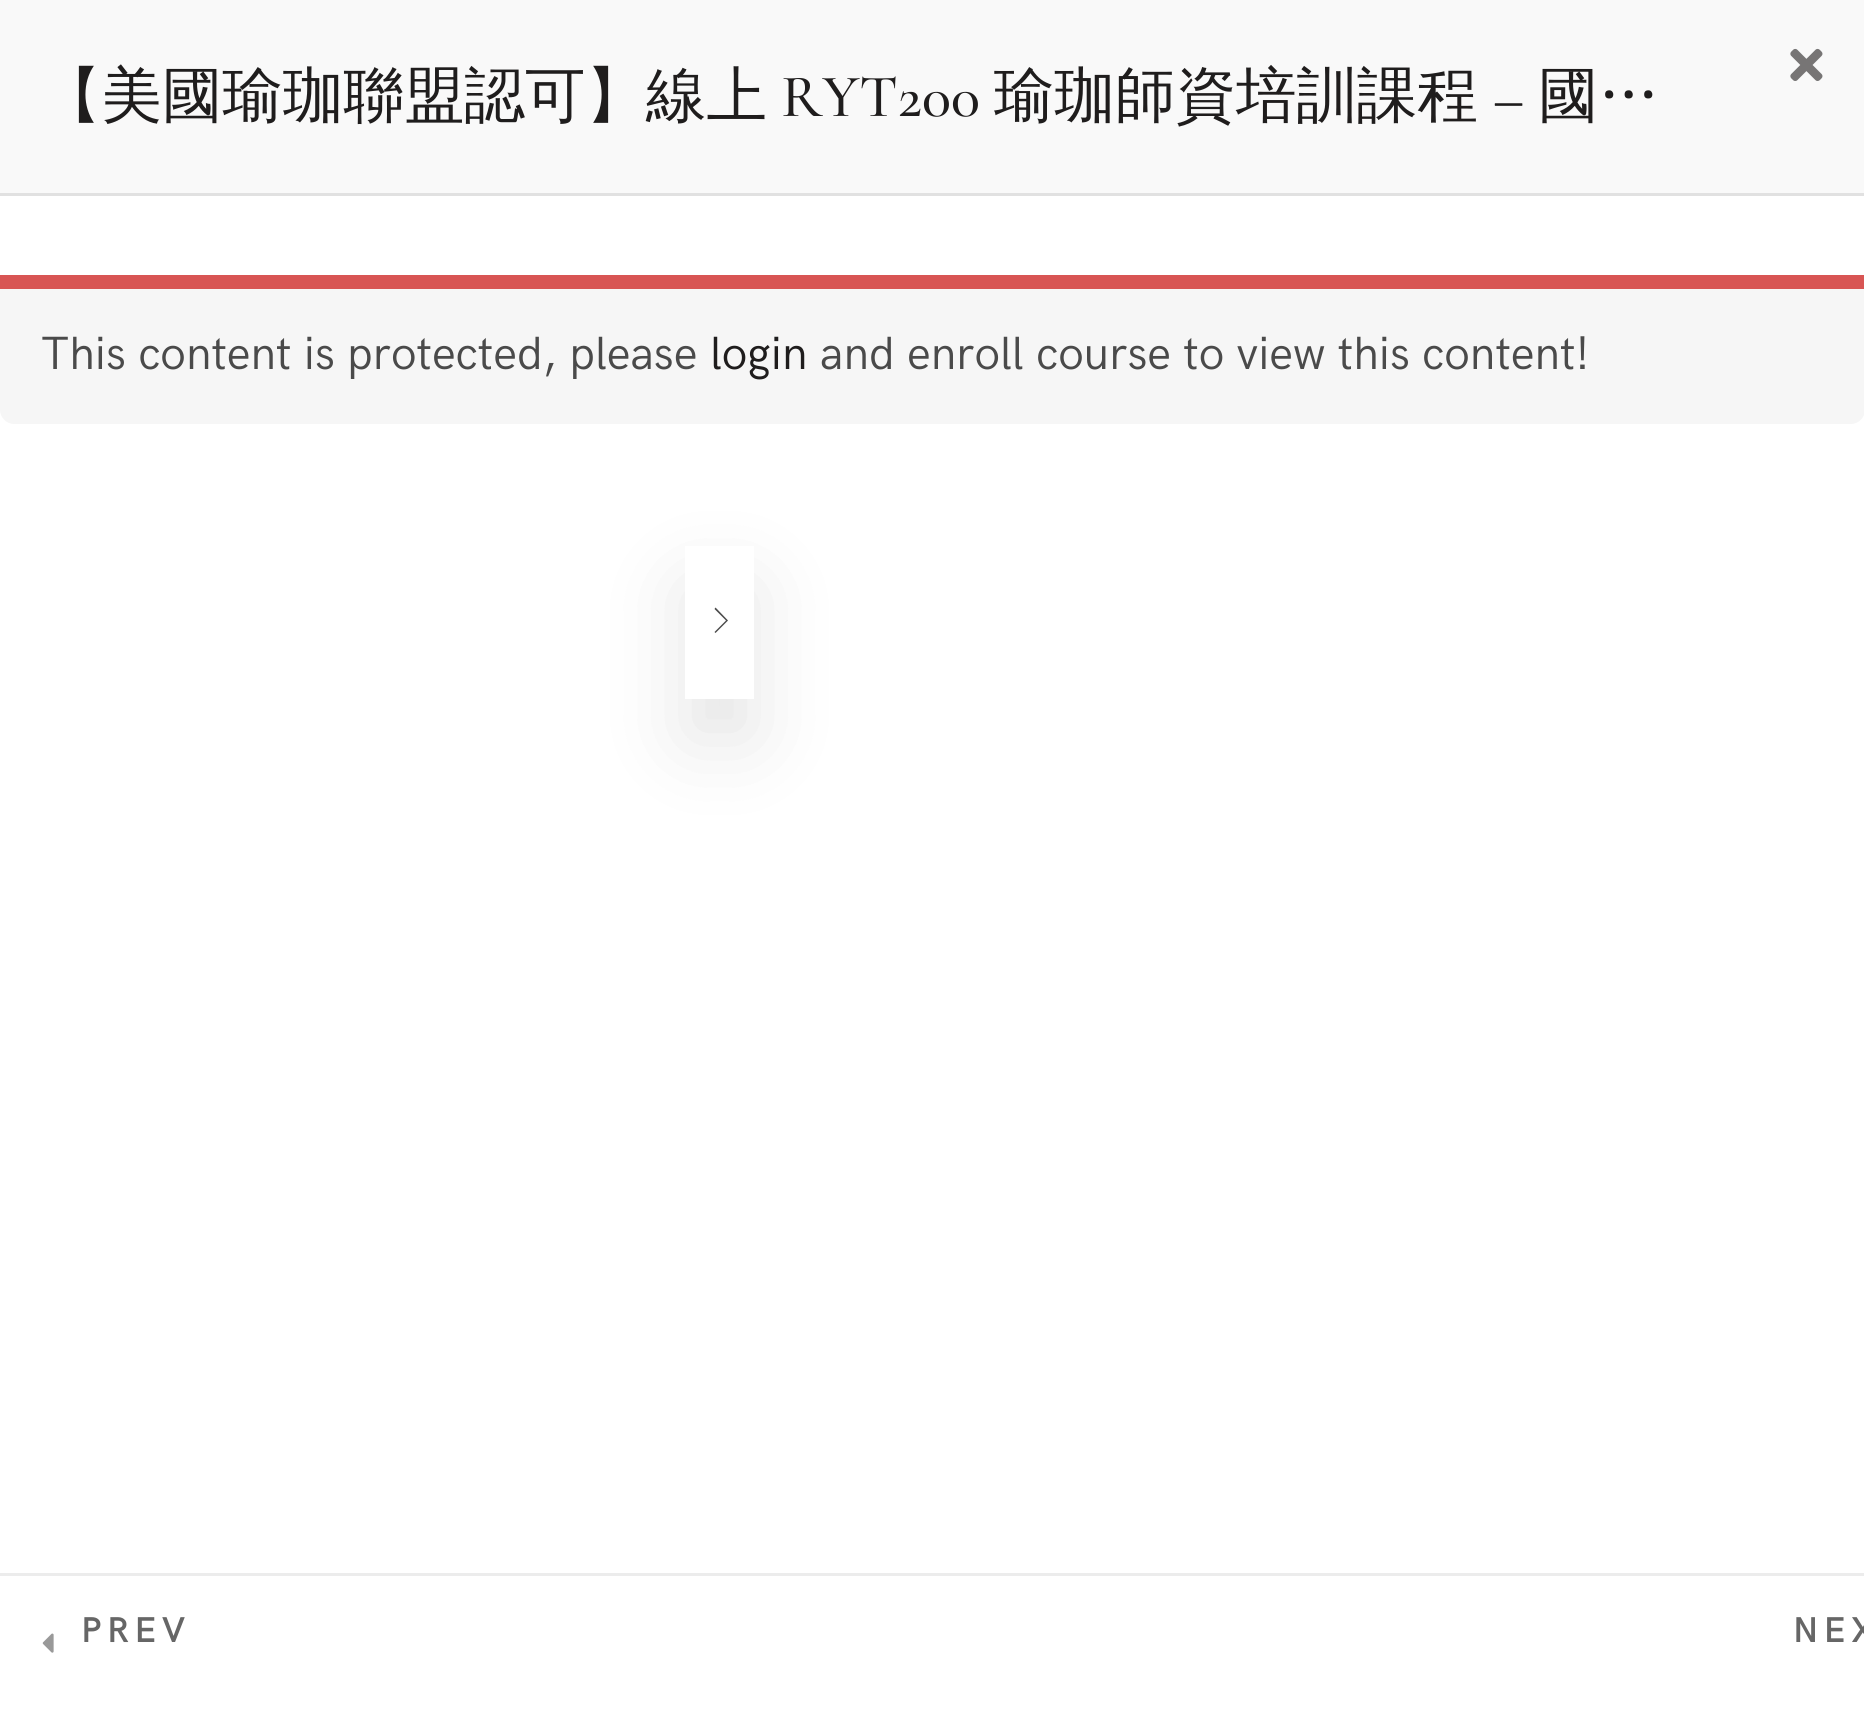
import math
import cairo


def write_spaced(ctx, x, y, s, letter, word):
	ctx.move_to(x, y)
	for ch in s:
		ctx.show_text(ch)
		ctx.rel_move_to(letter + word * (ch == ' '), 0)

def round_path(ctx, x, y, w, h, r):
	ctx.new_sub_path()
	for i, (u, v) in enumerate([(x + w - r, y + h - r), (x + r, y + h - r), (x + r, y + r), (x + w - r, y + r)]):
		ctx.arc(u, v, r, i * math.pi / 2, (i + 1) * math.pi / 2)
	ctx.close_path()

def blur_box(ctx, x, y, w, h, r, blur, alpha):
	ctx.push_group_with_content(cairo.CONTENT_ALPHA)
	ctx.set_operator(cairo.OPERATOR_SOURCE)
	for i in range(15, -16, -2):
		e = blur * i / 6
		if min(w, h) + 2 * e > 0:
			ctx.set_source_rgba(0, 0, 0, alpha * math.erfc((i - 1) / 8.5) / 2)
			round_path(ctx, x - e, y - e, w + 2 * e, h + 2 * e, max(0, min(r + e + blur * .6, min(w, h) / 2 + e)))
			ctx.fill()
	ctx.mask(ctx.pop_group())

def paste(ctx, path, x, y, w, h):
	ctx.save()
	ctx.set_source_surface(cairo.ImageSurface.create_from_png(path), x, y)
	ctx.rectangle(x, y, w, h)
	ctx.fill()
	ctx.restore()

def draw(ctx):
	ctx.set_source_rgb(1, 1, 1)
	ctx.paint()
	ctx.set_source_rgb(0.976, 0.976, 0.976)
	ctx.rectangle(0, 0, 1864, 193)
	ctx.fill()
	ctx.set_source_rgb(0.882, 0.882, 0.882)
	ctx.rectangle(0, 193, 1864, 3)
	ctx.fill()
	ctx.select_font_face('WenQuanYi Zen Hei Medium')
	ctx.set_font_size(60.5)
	ctx.set_source_rgb(0.122, 0.114, 0.114)
	ctx.move_to(41, 116)
	ctx.show_text('【美國瑜珈聯盟認可】線上')
	ctx.select_font_face('Cormorant Garamond Light')
	ctx.move_to(781, 116)
	ctx.show_text('RYT200')
	ctx.select_font_face('WenQuanYi Zen Hei Medium')
	ctx.move_to(994, 116)
	ctx.show_text('瑜珈師資培訓課程')
	ctx.select_font_face('Cormorant Garamond Light')
	ctx.move_to(1493, 116)
	ctx.show_text('–')
	ctx.select_font_face('WenQuanYi Zen Hei Medium')
	ctx.move_to(1538, 116)
	ctx.show_text('國…')
	paste(ctx, 'media/1.png', 1790, 48, 33, 33)
	ctx.set_source_rgb(0.961, 0.961, 0.961)
	ctx.new_path()
	ctx.move_to(0, 275)
	ctx.line_to(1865, 275)
	ctx.line_to(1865, 410)
	ctx.curve_to(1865, 417.5, 1858.5, 424, 1851, 424)
	ctx.line_to(14, 424)
	ctx.curve_to(6.5, 424, 0, 417.5, 0, 410)
	ctx.close_path()
	ctx.fill()
	ctx.set_source_rgb(0.847, 0.333, 0.329)
	ctx.rectangle(0, 275, 1864, 14)
	ctx.fill()
	ctx.select_font_face('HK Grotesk')
	ctx.set_font_size(46.75)
	ctx.set_source_rgb(0.29, 0.29, 0.29)
	ctx.move_to(41, 369)
	ctx.show_text('This content is protected, please')
	ctx.set_source_rgb(0.122, 0.114, 0.114)
	ctx.move_to(710, 369)
	ctx.show_text('login')
	ctx.set_source_rgb(0.29, 0.29, 0.29)
	ctx.move_to(820, 369)
	ctx.show_text('and enroll course to view this content!')
	ctx.set_source_rgb(0, 0, 0)
	blur_box(ctx, 685, 586, 69, 154, 0, 41, 0.1)
	ctx.set_source_rgb(1, 1, 1)
	ctx.rectangle(685, 546, 69, 153)
	ctx.fill()
	ctx.set_source_rgb(0.29, 0.29, 0.29)
	ctx.new_path()
	ctx.move_to(728, 620.5)
	ctx.line_to(715.5, 633)
	ctx.line_to(714.5, 632)
	ctx.line_to(726, 620.5)
	ctx.line_to(714.5, 609)
	ctx.line_to(715.5, 607.5)
	ctx.close_path()
	ctx.fill()
	ctx.set_source_rgb(0.922, 0.922, 0.922)
	ctx.rectangle(0, 1573, 1864, 3)
	ctx.fill()
	paste(ctx, 'media/2.png', 42, 1633, 12, 20)
	ctx.select_font_face('HK Grotesk SemiBold')
	ctx.set_font_size(36)
	ctx.set_source_rgb(0.4, 0.4, 0.4)
	write_spaced(ctx, 81, 1642, 'PREV', 5.5, 0)
	write_spaced(ctx, 1793, 1642, 'NEX', 5.5, 0)


surface = cairo.ImageSurface(cairo.FORMAT_RGB24, 1864, 1713)
ctx = cairo.Context(surface)
options = cairo.FontOptions()
options.set_hint_metrics(cairo.HINT_METRICS_OFF)
options.set_hint_style(cairo.HINT_STYLE_NONE)
ctx.set_font_options(options)
ctx.set_miter_limit(4)
draw(ctx)
surface.write_to_png('image.png')
